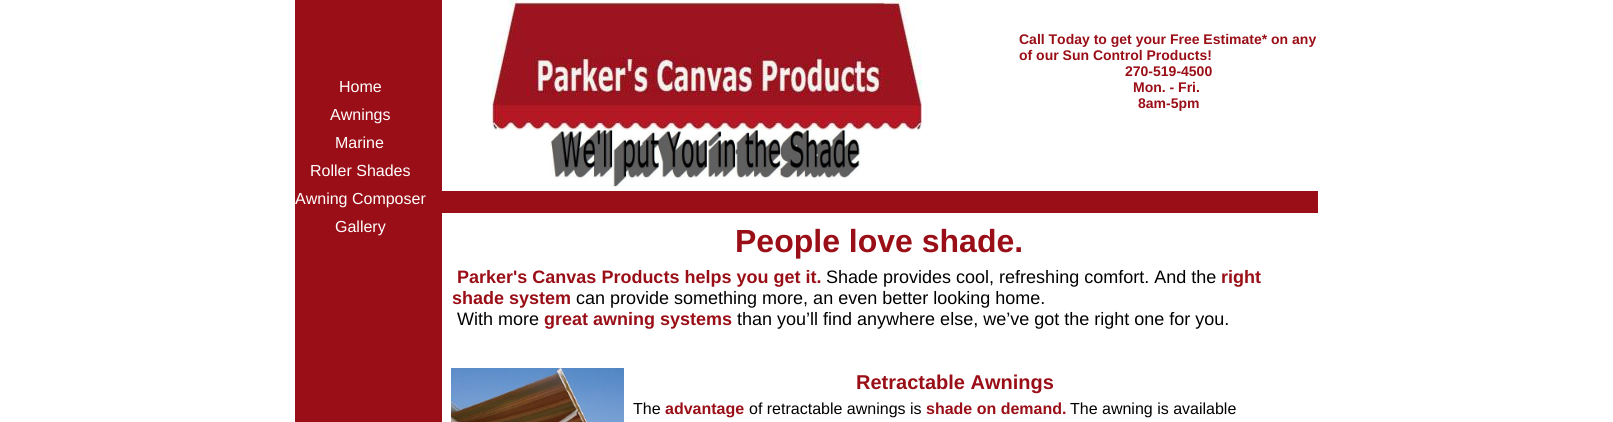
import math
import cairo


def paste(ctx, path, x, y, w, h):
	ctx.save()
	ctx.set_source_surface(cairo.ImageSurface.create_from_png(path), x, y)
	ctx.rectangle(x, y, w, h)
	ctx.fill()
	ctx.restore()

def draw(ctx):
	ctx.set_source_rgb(1, 1, 1)
	ctx.paint()
	ctx.set_source_rgb(0.604, 0.059, 0.09)
	ctx.rectangle(295, 0, 147, 422)
	ctx.fill()
	paste(ctx, 'media/1.png', 492, 0, 430, 130)
	ctx.select_font_face('Liberation Sans', cairo.FONT_SLANT_NORMAL, cairo.FONT_WEIGHT_BOLD)
	ctx.set_font_size(14)
	for x, y, s in [
		(1019, 44, 'Call Today to get your Free Estimate* on any'),
		(1019, 60, 'of our Sun Control Products!'),
		(1125, 76, '270-519-4500'),
		(1133, 92, 'Mon. - Fri.'),
		(1138, 108, '8am-5pm'),
	]:
		ctx.move_to(x, y)
		ctx.show_text(s)
	ctx.select_font_face('Liberation Sans')
	ctx.set_font_size(16)
	ctx.set_source_rgb(1, 1, 1)
	for x, y, s in [
		(339, 92, 'Home'),
		(330, 120, 'Awnings'),
		(335, 148, 'Marine'),
		(310, 176, 'Roller Shades'),
		(295, 204, 'Awning Composer'),
		(335, 232, 'Gallery'),
	]:
		ctx.move_to(x, y)
		ctx.show_text(s)
	paste(ctx, 'media/2.png', 549, 130, 312, 57)
	ctx.set_source_rgb(0.604, 0.059, 0.09)
	ctx.rectangle(442, 191, 876, 22)
	ctx.fill()
	ctx.select_font_face('Liberation Sans', cairo.FONT_SLANT_NORMAL, cairo.FONT_WEIGHT_BOLD)
	ctx.set_font_size(32)
	ctx.move_to(735, 252)
	ctx.show_text('People love shade.')
	ctx.set_font_size(18)
	ctx.move_to(457, 283)
	ctx.show_text('Parker\'s Canvas Products helps you get it.')
	ctx.select_font_face('Liberation Sans')
	ctx.set_source_rgb(0, 0, 0)
	ctx.move_to(826, 283)
	ctx.show_text('Shade provides cool, refreshing comfort. And the')
	ctx.select_font_face('Liberation Sans', cairo.FONT_SLANT_NORMAL, cairo.FONT_WEIGHT_BOLD)
	ctx.set_source_rgb(0.604, 0.059, 0.09)
	ctx.move_to(1221, 283)
	ctx.show_text('right')
	ctx.move_to(452, 304)
	ctx.show_text('shade system')
	ctx.select_font_face('Liberation Sans')
	ctx.set_source_rgb(0, 0, 0)
	ctx.move_to(576, 304)
	ctx.show_text('can provide something more, an even better looking home.')
	ctx.move_to(457, 325)
	ctx.show_text('With more')
	ctx.select_font_face('Liberation Sans', cairo.FONT_SLANT_NORMAL, cairo.FONT_WEIGHT_BOLD)
	ctx.set_source_rgb(0.604, 0.059, 0.09)
	ctx.move_to(544, 325)
	ctx.show_text('great awning systems')
	ctx.select_font_face('Liberation Sans')
	ctx.set_source_rgb(0, 0, 0)
	ctx.move_to(737, 325)
	ctx.show_text('than you’ll find anywhere else, we’ve got the right one for you.')
	paste(ctx, 'media/3.png', 451, 368, 173, 54)
	ctx.select_font_face('Liberation Sans', cairo.FONT_SLANT_NORMAL, cairo.FONT_WEIGHT_BOLD)
	ctx.set_font_size(20)
	ctx.set_source_rgb(0.604, 0.059, 0.09)
	ctx.move_to(856, 389)
	ctx.show_text('Retractable Awnings')
	ctx.select_font_face('Liberation Sans')
	ctx.set_font_size(16)
	ctx.set_source_rgb(0, 0, 0)
	ctx.move_to(633, 414)
	ctx.show_text('The')
	ctx.select_font_face('Liberation Sans', cairo.FONT_SLANT_NORMAL, cairo.FONT_WEIGHT_BOLD)
	ctx.set_source_rgb(0.604, 0.059, 0.09)
	ctx.move_to(665, 414)
	ctx.show_text('advantage')
	ctx.select_font_face('Liberation Sans')
	ctx.set_source_rgb(0, 0, 0)
	ctx.move_to(749, 414)
	ctx.show_text('of retractable awnings is')
	ctx.select_font_face('Liberation Sans', cairo.FONT_SLANT_NORMAL, cairo.FONT_WEIGHT_BOLD)
	ctx.set_source_rgb(0.604, 0.059, 0.09)
	ctx.move_to(926, 414)
	ctx.show_text('shade on demand.')
	ctx.select_font_face('Liberation Sans')
	ctx.set_source_rgb(0, 0, 0)
	ctx.move_to(1070, 414)
	ctx.show_text('The awning is available')


surface = cairo.ImageSurface(cairo.FORMAT_RGB24, 1613, 422)
ctx = cairo.Context(surface)
options = cairo.FontOptions()
options.set_hint_metrics(cairo.HINT_METRICS_OFF)
options.set_hint_style(cairo.HINT_STYLE_NONE)
ctx.set_font_options(options)
ctx.set_miter_limit(4)
draw(ctx)
surface.write_to_png('image.png')
